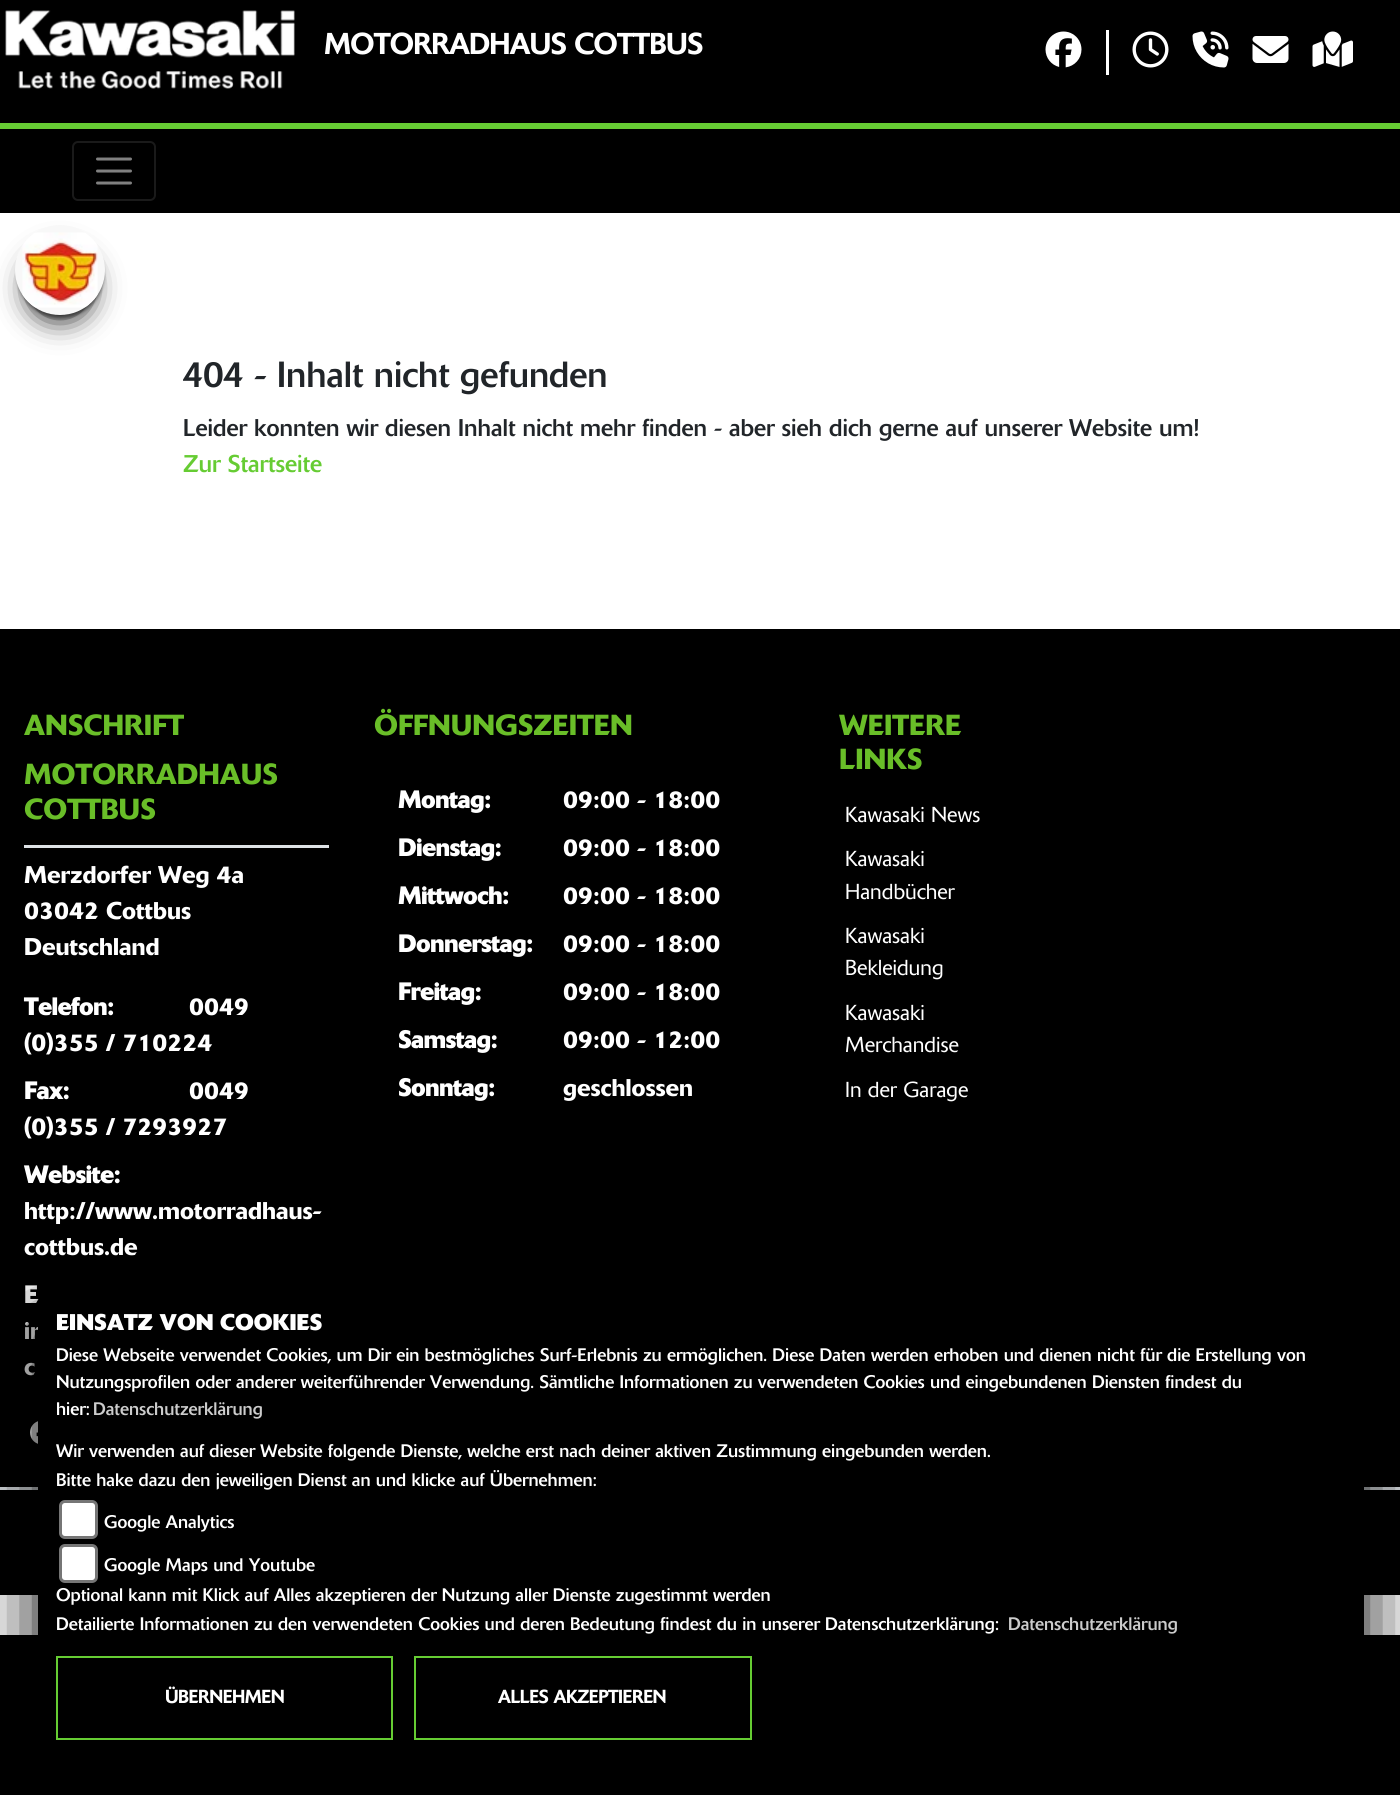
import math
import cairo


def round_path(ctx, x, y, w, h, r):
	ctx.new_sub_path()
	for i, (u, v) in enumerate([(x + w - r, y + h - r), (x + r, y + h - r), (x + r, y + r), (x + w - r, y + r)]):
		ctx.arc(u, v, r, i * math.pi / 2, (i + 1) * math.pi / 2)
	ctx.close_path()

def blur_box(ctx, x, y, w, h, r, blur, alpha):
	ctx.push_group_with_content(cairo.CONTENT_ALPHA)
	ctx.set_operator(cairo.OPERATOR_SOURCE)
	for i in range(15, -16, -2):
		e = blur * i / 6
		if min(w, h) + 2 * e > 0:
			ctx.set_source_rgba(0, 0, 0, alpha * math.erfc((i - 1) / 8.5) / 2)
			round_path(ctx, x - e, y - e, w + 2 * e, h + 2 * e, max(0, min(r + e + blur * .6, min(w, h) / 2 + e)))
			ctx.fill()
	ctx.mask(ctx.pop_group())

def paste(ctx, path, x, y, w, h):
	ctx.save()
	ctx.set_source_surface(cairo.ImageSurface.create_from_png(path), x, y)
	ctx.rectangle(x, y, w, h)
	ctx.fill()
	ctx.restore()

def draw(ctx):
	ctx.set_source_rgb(1, 1, 1)
	ctx.paint()
	ctx.set_source_rgb(0, 0, 0)
	ctx.rectangle(0, 0, 1400, 213)
	ctx.fill()
	ctx.set_source_rgb(0.4, 0.8, 0.2)
	ctx.rectangle(0, 123, 1400, 6)
	ctx.fill()
	paste(ctx, 'media/1.png', 5, 10, 290, 79)
	ctx.select_font_face('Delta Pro', cairo.FONT_SLANT_NORMAL, cairo.FONT_WEIGHT_BOLD)
	ctx.set_font_size(28.75)
	ctx.set_source_rgb(1, 1, 1)
	ctx.move_to(324, 54)
	ctx.show_text('MOTORRADHAUS COTTBUS')
	paste(ctx, 'media/2.png', 1045, 31, 37, 37)
	ctx.rectangle(1106, 30, 3, 45)
	ctx.fill()
	paste(ctx, 'media/3.png', 1132, 31, 37, 37)
	paste(ctx, 'media/4.png', 1192, 31, 37, 37)
	paste(ctx, 'media/5.png', 1252, 36, 37, 27)
	paste(ctx, 'media/6.png', 1312, 31, 41, 36)
	round_path(ctx, 73, 142, 82, 58, 5)
	ctx.set_source_rgb(0.102, 0.102, 0.102)
	ctx.stroke()
	ctx.new_path()
	ctx.move_to(97.5, 159)
	ctx.line_to(130.5, 159)
	ctx.move_to(97.5, 171)
	ctx.line_to(130.5, 171)
	ctx.move_to(97.5, 183)
	ctx.line_to(130.5, 183)
	ctx.set_source_rgb(0.502, 0.502, 0.502)
	ctx.set_line_width(3)
	ctx.set_line_cap(cairo.LINE_CAP_ROUND)
	ctx.stroke()
	ctx.set_source_rgb(0, 0, 0)
	blur_box(ctx, 30, 258, 60, 60, 30, 15, 1)
	blur_box(ctx, 17, 231, 87, 87, 43.5, 1.5, 0.5)
	ctx.set_source_rgb(0.969, 0.969, 0.969)
	ctx.arc(60, 270, 45, 0, 2 * math.pi)
	ctx.fill()
	paste(ctx, 'media/7.png', 22, 232, 76, 76)
	ctx.select_font_face('Delta Pro')
	ctx.set_font_size(36)
	ctx.set_source_rgb(0.129, 0.145, 0.161)
	ctx.move_to(183, 387)
	ctx.show_text('404 - Inhalt nicht gefunden')
	ctx.set_font_size(24)
	ctx.move_to(183, 436)
	ctx.show_text('Leider konnten wir diesen Inhalt nicht mehr finden - aber sieh dich gerne auf unserer Website um!')
	ctx.set_source_rgb(0.4, 0.8, 0.2)
	ctx.move_to(183, 472)
	ctx.show_text('Zur Startseite')
	ctx.set_source_rgb(0, 0, 0)
	ctx.rectangle(0, 629, 1400, 966)
	ctx.fill()
	ctx.select_font_face('Delta Pro Medium')
	ctx.set_font_size(28.75)
	ctx.set_source_rgb(0.412, 0.745, 0.157)
	for x, y, s in [
		(24, 735, 'ANSCHRIFT'),
		(24, 784, 'MOTORRADHAUS'),
		(24, 819, 'COTTBUS'),
	]:
		ctx.move_to(x, y)
		ctx.show_text(s)
	ctx.set_source_rgb(0.871, 0.886, 0.902)
	ctx.rectangle(24, 845, 305, 3)
	ctx.fill()
	ctx.set_font_size(24)
	ctx.set_source_rgb(1, 1, 1)
	for x, y, s in [
		(24, 883, 'Merzdorfer Weg 4a'),
		(24, 919, '03042 Cottbus'),
		(24, 955, 'Deutschland'),
	]:
		ctx.move_to(x, y)
		ctx.show_text(s)
	ctx.select_font_face('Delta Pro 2', cairo.FONT_SLANT_NORMAL, cairo.FONT_WEIGHT_BOLD)
	ctx.move_to(24, 1015)
	ctx.show_text('Telefon:')
	ctx.select_font_face('Delta Pro Medium')
	for x, y, s in [
		(189, 1015, '0049'),
		(24, 1051, '(0)355 / 710224'),
		(189, 1099, '0049'),
		(24, 1135, '(0)355 / 7293927'),
	]:
		ctx.move_to(x, y)
		ctx.show_text(s)
	ctx.select_font_face('Delta Pro 2', cairo.FONT_SLANT_NORMAL, cairo.FONT_WEIGHT_BOLD)
	ctx.move_to(24, 1099)
	ctx.show_text('Fax:')
	ctx.move_to(24, 1183)
	ctx.show_text('Website:')
	ctx.select_font_face('Delta Pro Medium')
	ctx.move_to(24, 1219)
	ctx.show_text('http://www.motorradhaus-')
	ctx.move_to(24, 1255)
	ctx.show_text('cottbus.de')
	ctx.select_font_face('Delta Pro 2', cairo.FONT_SLANT_NORMAL, cairo.FONT_WEIGHT_BOLD)
	ctx.move_to(24, 1303)
	ctx.show_text('E')
	ctx.select_font_face('Delta Pro Medium')
	ctx.move_to(24, 1339)
	ctx.show_text('in')
	ctx.move_to(24, 1375)
	ctx.show_text('c')
	paste(ctx, 'media/8.png', 30, 1421, 8, 23)
	ctx.set_font_size(28.75)
	ctx.set_source_rgb(0.412, 0.745, 0.157)
	ctx.move_to(374, 735)
	ctx.show_text('ÖFFNUNGSZEITEN')
	ctx.select_font_face('Delta Pro 2', cairo.FONT_SLANT_NORMAL, cairo.FONT_WEIGHT_BOLD)
	ctx.set_font_size(24)
	ctx.set_source_rgb(1, 1, 1)
	ctx.move_to(398, 808)
	ctx.show_text('Montag:')
	ctx.select_font_face('Delta Pro Medium')
	ctx.move_to(563, 808)
	ctx.show_text('09:00 - 18:00')
	ctx.select_font_face('Delta Pro 2', cairo.FONT_SLANT_NORMAL, cairo.FONT_WEIGHT_BOLD)
	ctx.move_to(398, 856)
	ctx.show_text('Dienstag:')
	ctx.select_font_face('Delta Pro Medium')
	ctx.move_to(563, 856)
	ctx.show_text('09:00 - 18:00')
	ctx.select_font_face('Delta Pro 2', cairo.FONT_SLANT_NORMAL, cairo.FONT_WEIGHT_BOLD)
	ctx.move_to(398, 904)
	ctx.show_text('Mittwoch:')
	ctx.select_font_face('Delta Pro Medium')
	ctx.move_to(563, 904)
	ctx.show_text('09:00 - 18:00')
	ctx.select_font_face('Delta Pro 2', cairo.FONT_SLANT_NORMAL, cairo.FONT_WEIGHT_BOLD)
	ctx.move_to(398, 952)
	ctx.show_text('Donnerstag:')
	ctx.select_font_face('Delta Pro Medium')
	ctx.move_to(563, 952)
	ctx.show_text('09:00 - 18:00')
	ctx.select_font_face('Delta Pro 2', cairo.FONT_SLANT_NORMAL, cairo.FONT_WEIGHT_BOLD)
	ctx.move_to(398, 1000)
	ctx.show_text('Freitag:')
	ctx.select_font_face('Delta Pro Medium')
	ctx.move_to(563, 1000)
	ctx.show_text('09:00 - 18:00')
	ctx.select_font_face('Delta Pro 2', cairo.FONT_SLANT_NORMAL, cairo.FONT_WEIGHT_BOLD)
	ctx.move_to(398, 1048)
	ctx.show_text('Samstag:')
	ctx.select_font_face('Delta Pro Medium')
	ctx.move_to(563, 1048)
	ctx.show_text('09:00 - 12:00')
	ctx.select_font_face('Delta Pro 2', cairo.FONT_SLANT_NORMAL, cairo.FONT_WEIGHT_BOLD)
	ctx.move_to(398, 1096)
	ctx.show_text('Sonntag:')
	ctx.select_font_face('Delta Pro Medium')
	ctx.move_to(563, 1096)
	ctx.show_text('geschlossen')
	ctx.set_font_size(28.75)
	ctx.set_source_rgb(0.412, 0.745, 0.157)
	ctx.move_to(839, 735)
	ctx.show_text('WEITERE')
	ctx.move_to(839, 769)
	ctx.show_text('LINKS')
	ctx.select_font_face('Delta Pro Light')
	ctx.set_font_size(21.5)
	ctx.set_source_rgb(1, 1, 1)
	for x, y, s in [
		(845, 822, 'Kawasaki News'),
		(845, 866, 'Kawasaki'),
		(845, 899, 'Handbücher'),
		(845, 943, 'Kawasaki'),
		(845, 975, 'Bekleidung'),
		(845, 1020, 'Kawasaki'),
		(845, 1052, 'Merchandise'),
		(845, 1097, 'In der Garage'),
	]:
		ctx.move_to(x, y)
		ctx.show_text(s)
	ctx.set_source_rgb(0.871, 0.886, 0.902)
	ctx.rectangle(0, 1487, 1400, 3)
	ctx.fill()
	ctx.set_source_rgb(0, 0, 0)
	ctx.rectangle(0, 1635, 1400, 160)
	ctx.fill()
	ctx.save()
	ctx.rectangle(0, 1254, 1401, 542)
	ctx.clip()
	ctx.set_source_rgb(0, 0, 0)
	blur_box(ctx, 38, 1325, 1326, 466, 0, 37.5, 1)
	ctx.restore()
	ctx.rectangle(38, 1326, 1326, 309)
	ctx.fill()
	ctx.select_font_face('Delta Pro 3', cairo.FONT_SLANT_NORMAL, cairo.FONT_WEIGHT_BOLD)
	ctx.set_font_size(22.5)
	ctx.set_source_rgb(1, 1, 1)
	ctx.move_to(56, 1330)
	ctx.show_text('EINSATZ VON COOKIES')
	ctx.select_font_face('Delta Pro')
	ctx.set_font_size(18)
	for x, y, s in [
		(56, 1361, 'Diese Webseite verwendet Cookies, um Dir ein bestmögliches Surf-Erlebnis zu ermöglichen. Diese Daten werden erhoben und dienen nicht für die Erstellung von'),
		(56, 1388, 'Nutzungsprofilen oder anderer weiterführender Verwendung. Sämtliche Informationen zu verwendeten Cookies und eingebundenen Diensten findest du'),
		(56, 1415, 'hier:'),
	]:
		ctx.move_to(x, y)
		ctx.show_text(s)
	ctx.set_source_rgb(0.8, 0.8, 0.8)
	ctx.move_to(93, 1415)
	ctx.show_text('Datenschutzerklärung')
	ctx.set_source_rgb(1, 1, 1)
	ctx.move_to(56, 1457)
	ctx.show_text('Wir verwenden auf dieser Website folgende Dienste, welche erst nach deiner aktiven Zustimmung eingebunden werden.')
	ctx.move_to(56, 1486)
	ctx.show_text('Bitte hake dazu den jeweiligen Dienst an und klicke auf Übernehmen:')
	round_path(ctx, 60.5, 1501.5, 36, 36, 4.5)
	ctx.fill_preserve()
	ctx.set_source_rgb(0.463, 0.463, 0.463)
	ctx.set_line_cap(cairo.LINE_CAP_BUTT)
	ctx.stroke()
	ctx.set_source_rgb(1, 1, 1)
	ctx.move_to(104, 1528)
	ctx.show_text('Google Analytics')
	round_path(ctx, 60.5, 1545.5, 36, 36, 4.5)
	ctx.fill_preserve()
	ctx.set_source_rgb(0.463, 0.463, 0.463)
	ctx.stroke()
	ctx.set_source_rgb(1, 1, 1)
	for x, y, s in [
		(104, 1571, 'Google Maps und Youtube'),
		(56, 1601, 'Optional kann mit Klick auf Alles akzeptieren der Nutzung aller Dienste zugestimmt werden'),
		(56, 1630, 'Detailierte Informationen zu den verwendeten Cookies und deren Bedeutung findest du in unserer Datenschutzerklärung:'),
	]:
		ctx.move_to(x, y)
		ctx.show_text(s)
	ctx.set_source_rgb(0.8, 0.8, 0.8)
	ctx.move_to(1008, 1630)
	ctx.show_text('Datenschutzerklärung')
	ctx.rectangle(57, 1657, 335, 82)
	ctx.set_source_rgb(0.4, 0.8, 0.2)
	ctx.set_line_width(2)
	ctx.stroke()
	ctx.select_font_face('Delta Pro', cairo.FONT_SLANT_NORMAL, cairo.FONT_WEIGHT_BOLD)
	ctx.set_source_rgb(1, 1, 1)
	ctx.move_to(165, 1703)
	ctx.show_text('ÜBERNEHMEN')
	ctx.rectangle(415, 1657, 336, 82)
	ctx.set_source_rgb(0.4, 0.8, 0.2)
	ctx.stroke()
	ctx.set_source_rgb(1, 1, 1)
	ctx.move_to(498, 1703)
	ctx.show_text('ALLES AKZEPTIEREN')


surface = cairo.ImageSurface(cairo.FORMAT_RGB24, 1400, 1795)
ctx = cairo.Context(surface)
options = cairo.FontOptions()
options.set_hint_metrics(cairo.HINT_METRICS_OFF)
options.set_hint_style(cairo.HINT_STYLE_NONE)
ctx.set_font_options(options)
ctx.set_miter_limit(4)
draw(ctx)
surface.write_to_png('image.png')
